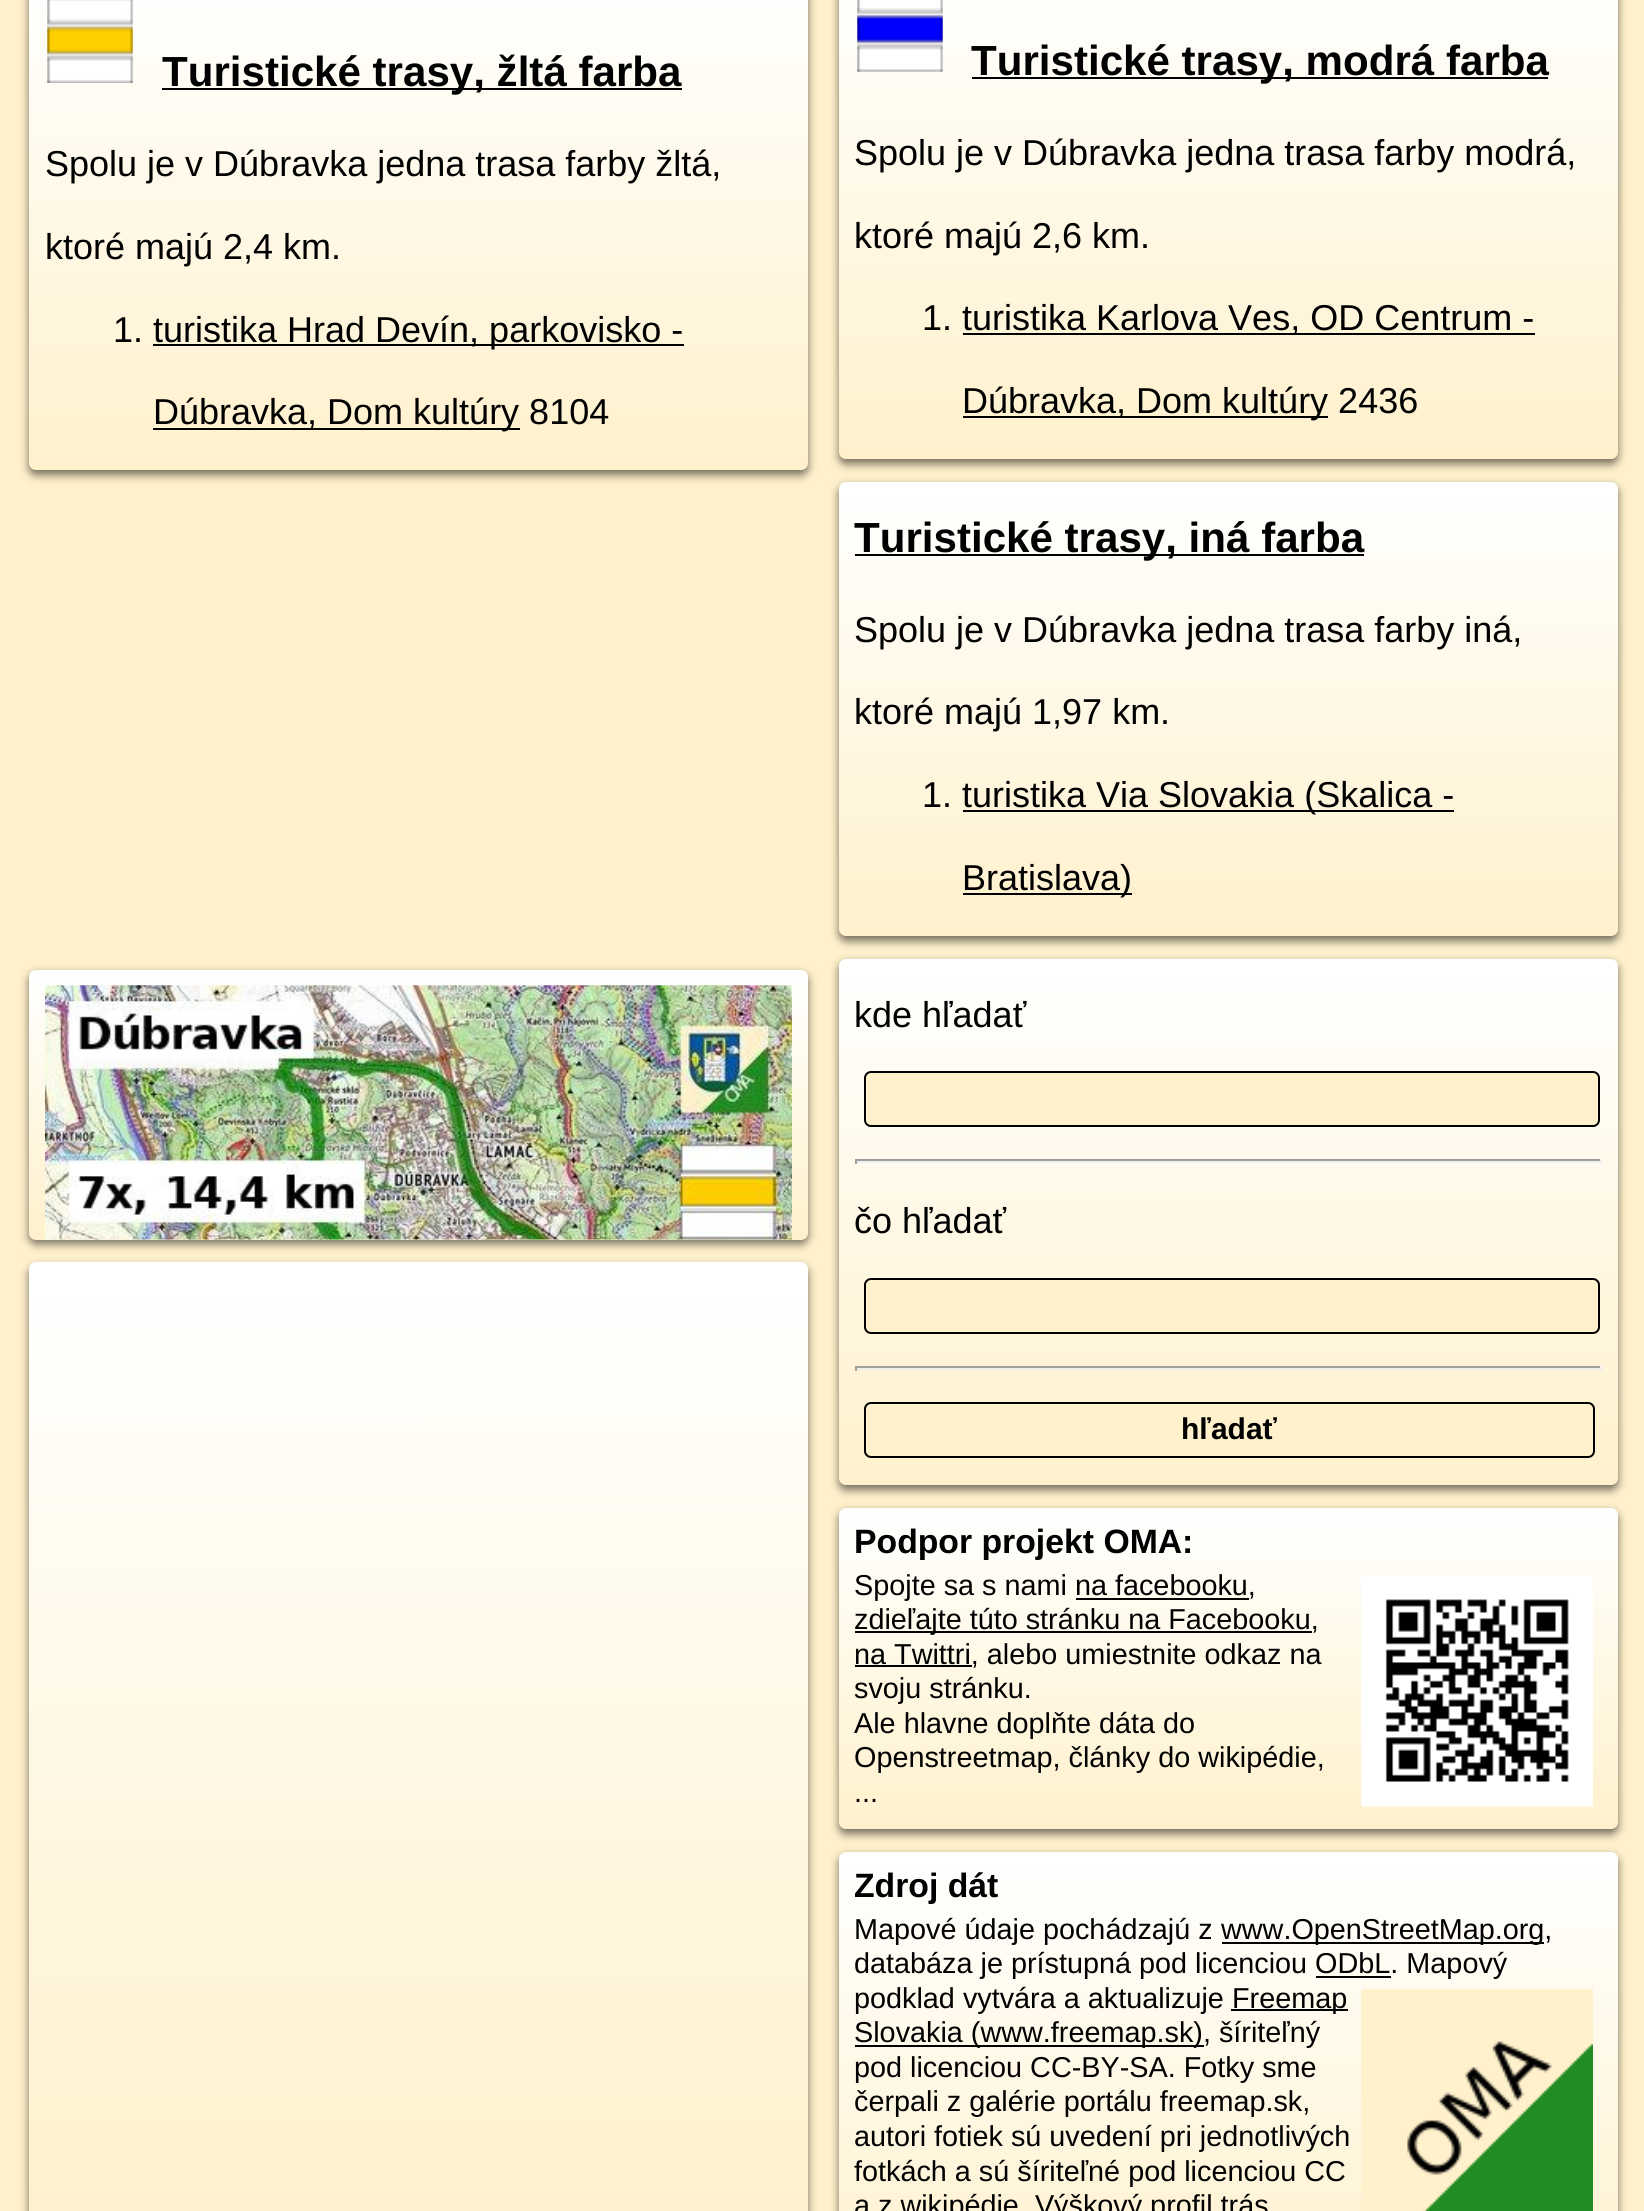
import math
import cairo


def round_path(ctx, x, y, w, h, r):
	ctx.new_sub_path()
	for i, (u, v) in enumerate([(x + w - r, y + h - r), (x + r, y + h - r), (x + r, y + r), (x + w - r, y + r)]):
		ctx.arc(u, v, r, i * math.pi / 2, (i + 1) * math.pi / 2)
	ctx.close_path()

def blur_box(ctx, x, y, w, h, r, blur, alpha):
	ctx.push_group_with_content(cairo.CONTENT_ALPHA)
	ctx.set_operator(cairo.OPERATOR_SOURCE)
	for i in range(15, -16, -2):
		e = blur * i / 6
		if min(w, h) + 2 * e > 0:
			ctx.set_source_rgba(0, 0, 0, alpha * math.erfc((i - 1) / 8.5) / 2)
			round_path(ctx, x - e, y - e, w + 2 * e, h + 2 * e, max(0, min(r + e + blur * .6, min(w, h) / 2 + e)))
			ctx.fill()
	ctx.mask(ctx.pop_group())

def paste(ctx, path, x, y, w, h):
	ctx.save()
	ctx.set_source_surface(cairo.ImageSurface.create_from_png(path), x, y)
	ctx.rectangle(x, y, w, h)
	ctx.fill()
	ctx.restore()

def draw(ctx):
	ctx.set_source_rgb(1, 0.945, 0.8)
	ctx.paint()
	ctx.set_source_rgb(0, 0, 0)
	blur_box(ctx, 29, -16, 779, 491, 7, 4.5, 0.55)
	gradient = cairo.LinearGradient(419, -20, 419, 470)
	gradient.add_color_stop_rgba(0, 1, 1, 1, 1)
	gradient.add_color_stop_rgba(1, 1, 0.945, 0.8, 1)
	ctx.set_source(gradient)
	round_path(ctx, 29, -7, 779, 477, 7)
	ctx.fill()
	paste(ctx, 'media/1.png', 47, 0, 86, 83)
	ctx.set_source_rgb(0, 0, 0)
	ctx.rectangle(162, 88, 520, 2)
	ctx.fill()
	ctx.select_font_face('Liberation Sans', cairo.FONT_SLANT_NORMAL, cairo.FONT_WEIGHT_BOLD)
	ctx.set_font_size(42.1)
	ctx.move_to(162, 86)
	ctx.show_text('Turistické trasy, žltá farba')
	ctx.select_font_face('Liberation Sans')
	ctx.set_font_size(36)
	for x, y, s in [
		(45, 176, 'Spolu je v Dúbravka jedna trasa farby žltá,'),
		(45, 259, 'ktoré majú 2,4 km.'),
		(113, 342, '1.'),
	]:
		ctx.move_to(x, y)
		ctx.show_text(s)
	ctx.rectangle(153, 344, 531, 2)
	ctx.fill()
	ctx.move_to(153, 342)
	ctx.show_text('turistika Hrad Devín, parkovisko -')
	ctx.rectangle(153, 428, 367, 2)
	ctx.fill()
	ctx.move_to(153, 424)
	ctx.show_text('Dúbravka, Dom kultúry 8104')
	ctx.set_source_rgb(0, 0, 0)
	blur_box(ctx, 839, -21, 779, 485, 7, 4.5, 0.55)
	gradient = cairo.LinearGradient(1229, -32, 1229, 459)
	gradient.add_color_stop_rgba(0, 1, 1, 1, 1)
	gradient.add_color_stop_rgba(1, 1, 0.945, 0.8, 1)
	ctx.set_source(gradient)
	round_path(ctx, 839, -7, 779, 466, 7)
	ctx.fill()
	paste(ctx, 'media/2.png', 857, 0, 86, 72)
	ctx.set_source_rgb(0, 0, 0)
	ctx.rectangle(972, 77, 576, 2)
	ctx.fill()
	ctx.select_font_face('Liberation Sans', cairo.FONT_SLANT_NORMAL, cairo.FONT_WEIGHT_BOLD)
	ctx.set_font_size(42.1)
	ctx.move_to(971, 75)
	ctx.show_text('Turistické trasy, modrá farba')
	ctx.select_font_face('Liberation Sans')
	ctx.set_font_size(36)
	for x, y, s in [
		(854, 165, 'Spolu je v Dúbravka jedna trasa farby modrá,'),
		(854, 248, 'ktoré majú 2,6 km.'),
		(922, 330, '1.'),
	]:
		ctx.move_to(x, y)
		ctx.show_text(s)
	ctx.rectangle(963, 333, 572, 2)
	ctx.fill()
	ctx.move_to(962, 330)
	ctx.show_text('turistika Karlova Ves, OD Centrum -')
	ctx.rectangle(963, 416, 365, 2)
	ctx.fill()
	ctx.move_to(962, 413)
	ctx.show_text('Dúbravka, Dom kultúry 2436')
	ctx.set_source_rgb(0, 0, 0)
	blur_box(ctx, 839, 486, 779, 455, 7, 4.5, 0.55)
	gradient = cairo.LinearGradient(1229, 482, 1229, 936)
	gradient.add_color_stop_rgba(0, 1, 1, 1, 1)
	gradient.add_color_stop_rgba(1, 1, 0.945, 0.8, 1)
	ctx.set_source(gradient)
	round_path(ctx, 839, 482, 779, 454, 7)
	ctx.fill()
	ctx.set_source_rgb(0, 0, 0)
	ctx.rectangle(855, 554, 509, 2)
	ctx.fill()
	ctx.select_font_face('Liberation Sans', cairo.FONT_SLANT_NORMAL, cairo.FONT_WEIGHT_BOLD)
	ctx.set_font_size(42.1)
	ctx.move_to(854, 552)
	ctx.show_text('Turistické trasy, iná farba')
	ctx.select_font_face('Liberation Sans')
	ctx.set_font_size(36)
	for x, y, s in [
		(854, 642, 'Spolu je v Dúbravka jedna trasa farby iná,'),
		(854, 724, 'ktoré majú 1,97 km.'),
		(922, 807, '1.'),
	]:
		ctx.move_to(x, y)
		ctx.show_text(s)
	ctx.rectangle(963, 810, 491, 2)
	ctx.fill()
	ctx.move_to(962, 807)
	ctx.show_text('turistika Via Slovakia (Skalica -')
	ctx.rectangle(963, 893, 169, 2)
	ctx.fill()
	ctx.move_to(962, 890)
	ctx.show_text('Bratislava)')
	ctx.set_source_rgb(0, 0, 0)
	blur_box(ctx, 29, 974, 779, 270, 7, 4.5, 0.55)
	gradient = cairo.LinearGradient(419, 970, 419, 1240)
	gradient.add_color_stop_rgba(0, 1, 1, 1, 1)
	gradient.add_color_stop_rgba(1, 1, 0.945, 0.8, 1)
	ctx.set_source(gradient)
	round_path(ctx, 29, 970, 779, 270, 7)
	ctx.fill()
	paste(ctx, 'media/3.png', 45, 985, 747, 255)
	ctx.set_source_rgb(0, 0, 0)
	blur_box(ctx, 839, 963, 779, 527, 7, 4.5, 0.55)
	gradient = cairo.LinearGradient(1229, 959, 1229, 1485)
	gradient.add_color_stop_rgba(0, 1, 1, 1, 1)
	gradient.add_color_stop_rgba(1, 1, 0.945, 0.8, 1)
	ctx.set_source(gradient)
	round_path(ctx, 839, 959, 779, 526, 7)
	ctx.fill()
	ctx.set_source_rgb(0, 0, 0)
	ctx.move_to(854, 1027)
	ctx.show_text('kde hľadať')
	ctx.set_source_rgb(1, 0.945, 0.8)
	round_path(ctx, 865, 1072, 734, 54, 6)
	ctx.fill_preserve()
	ctx.set_source_rgb(0, 0, 0)
	ctx.stroke()
	ctx.set_source_rgb(0.624, 0.624, 0.624)
	ctx.rectangle(855, 1159, 747, 2)
	ctx.fill()
	ctx.set_source_rgb(0.933, 0.933, 0.933)
	ctx.rectangle(1600, 1159, 2, 5)
	ctx.rectangle(855, 1161, 747, 2)
	ctx.fill()
	ctx.set_source_rgb(0.624, 0.624, 0.624)
	ctx.rectangle(855, 1159, 2, 5)
	ctx.fill()
	ctx.set_source_rgb(0, 0, 0)
	ctx.move_to(854, 1233)
	ctx.show_text('čo hľadať')
	ctx.set_source_rgb(1, 0.945, 0.8)
	round_path(ctx, 865, 1279, 734, 54, 6)
	ctx.fill_preserve()
	ctx.set_source_rgb(0, 0, 0)
	ctx.stroke()
	ctx.set_source_rgb(0.624, 0.624, 0.624)
	ctx.rectangle(855, 1366, 747, 2)
	ctx.fill()
	ctx.set_source_rgb(0.933, 0.933, 0.933)
	ctx.rectangle(1600, 1366, 2, 5)
	ctx.rectangle(855, 1368, 747, 2)
	ctx.fill()
	ctx.set_source_rgb(0.624, 0.624, 0.624)
	ctx.rectangle(855, 1366, 2, 5)
	ctx.fill()
	ctx.set_source_rgb(1, 0.945, 0.8)
	round_path(ctx, 865, 1403, 729, 54, 6)
	ctx.fill_preserve()
	ctx.set_source_rgb(0, 0, 0)
	ctx.stroke()
	ctx.select_font_face('Liberation Sans', cairo.FONT_SLANT_NORMAL, cairo.FONT_WEIGHT_BOLD)
	ctx.set_font_size(30)
	ctx.move_to(1181, 1439)
	ctx.show_text('hľadať')
	ctx.set_source_rgb(0, 0, 0)
	blur_box(ctx, 29, 1267, 779, 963, 7, 4.5, 0.55)
	gradient = cairo.LinearGradient(418, 1262, 419, 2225)
	gradient.add_color_stop_rgba(0, 1, 1, 1, 1)
	gradient.add_color_stop_rgba(1, 1, 0.945, 0.8, 1)
	ctx.set_source(gradient)
	round_path(ctx, 29, 1262, 779, 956, 7)
	ctx.fill()
	ctx.set_source_rgb(0, 0, 0)
	blur_box(ctx, 839, 1512, 779, 322, 7, 4.5, 0.55)
	gradient = cairo.LinearGradient(1229, 1508, 1229, 1829)
	gradient.add_color_stop_rgba(0, 1, 1, 1, 1)
	gradient.add_color_stop_rgba(1, 1, 0.945, 0.8, 1)
	ctx.set_source(gradient)
	round_path(ctx, 839, 1508, 779, 321, 7)
	ctx.fill()
	ctx.set_font_size(33.75)
	ctx.set_source_rgb(0, 0, 0)
	ctx.move_to(854, 1553)
	ctx.show_text('Podpor projekt OMA:')
	ctx.select_font_face('Liberation Sans')
	ctx.set_font_size(28.8)
	ctx.move_to(854, 1595)
	ctx.show_text('Spojte sa s nami na facebooku,')
	ctx.rectangle(1076, 1598, 173, 2)
	ctx.fill()
	ctx.rectangle(855, 1631, 457, 2)
	ctx.fill()
	ctx.move_to(854, 1629)
	ctx.show_text('zdieľajte túto stránku na Facebooku,')
	ctx.rectangle(855, 1665, 117, 2)
	ctx.fill()
	ctx.move_to(854, 1664)
	ctx.show_text('na Twittri, alebo umiestnite odkaz na')
	ctx.move_to(854, 1698)
	ctx.show_text('svoju stránku.')
	paste(ctx, 'media/4.png', 1361, 1575, 232, 232)
	for x, y, s in [
		(854, 1733, 'Ale hlavne doplňte dáta do'),
		(854, 1767, 'Openstreetmap, články do wikipédie,'),
		(854, 1802, '...'),
	]:
		ctx.move_to(x, y)
		ctx.show_text(s)
	ctx.set_source_rgb(0, 0, 0)
	blur_box(ctx, 839, 1856, 779, 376, 7, 4.5, 0.55)
	gradient = cairo.LinearGradient(1229, 1852, 1229, 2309)
	gradient.add_color_stop_rgba(0, 1, 1, 1, 1)
	gradient.add_color_stop_rgba(1, 1, 0.945, 0.8, 1)
	ctx.set_source(gradient)
	round_path(ctx, 839, 1852, 779, 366, 7)
	ctx.fill()
	ctx.select_font_face('Liberation Sans', cairo.FONT_SLANT_NORMAL, cairo.FONT_WEIGHT_BOLD)
	ctx.set_font_size(33.75)
	ctx.set_source_rgb(0, 0, 0)
	ctx.move_to(854, 1897)
	ctx.show_text('Zdroj dát')
	ctx.select_font_face('Liberation Sans')
	ctx.set_font_size(28.8)
	ctx.move_to(854, 1939)
	ctx.show_text('Mapové údaje pochádzajú z')
	ctx.rectangle(1222, 1942, 322, 2)
	ctx.fill()
	ctx.move_to(1221, 1939)
	ctx.show_text('www.OpenStreetMap.org,')
	ctx.move_to(854, 1973)
	ctx.show_text('databáza je prístupná pod licenciou ODbL. Mapový')
	ctx.rectangle(1316, 1976, 75, 2)
	ctx.fill()
	ctx.move_to(854, 2008)
	ctx.show_text('podklad vytvára a aktualizuje')
	ctx.rectangle(1231, 2009, 117, 2)
	ctx.fill()
	ctx.move_to(1232, 2008)
	ctx.show_text('Freemap')
	paste(ctx, 'media/5.png', 1361, 1988, 232, 223)
	ctx.rectangle(855, 2045, 349, 2)
	ctx.fill()
	for x, y, s in [
		(854, 2042, 'Slovakia (www.freemap.sk), šíriteľný'),
		(854, 2077, 'pod licenciou CC-BY-SA. Fotky sme'),
		(854, 2111, 'čerpali z galérie portálu freemap.sk,'),
		(854, 2146, 'autori fotiek sú uvedení pri jednotlivých'),
		(854, 2181, 'fotkách a sú šíriteľné pod licenciou CC'),
		(854, 2215, 'a z wikipédie. Výškový profil trás'),
	]:
		ctx.move_to(x, y)
		ctx.show_text(s)


surface = cairo.ImageSurface(cairo.FORMAT_RGB24, 1644, 2211)
ctx = cairo.Context(surface)
options = cairo.FontOptions()
options.set_hint_metrics(cairo.HINT_METRICS_OFF)
options.set_hint_style(cairo.HINT_STYLE_NONE)
ctx.set_font_options(options)
ctx.set_miter_limit(4)
draw(ctx)
surface.write_to_png('image.png')
